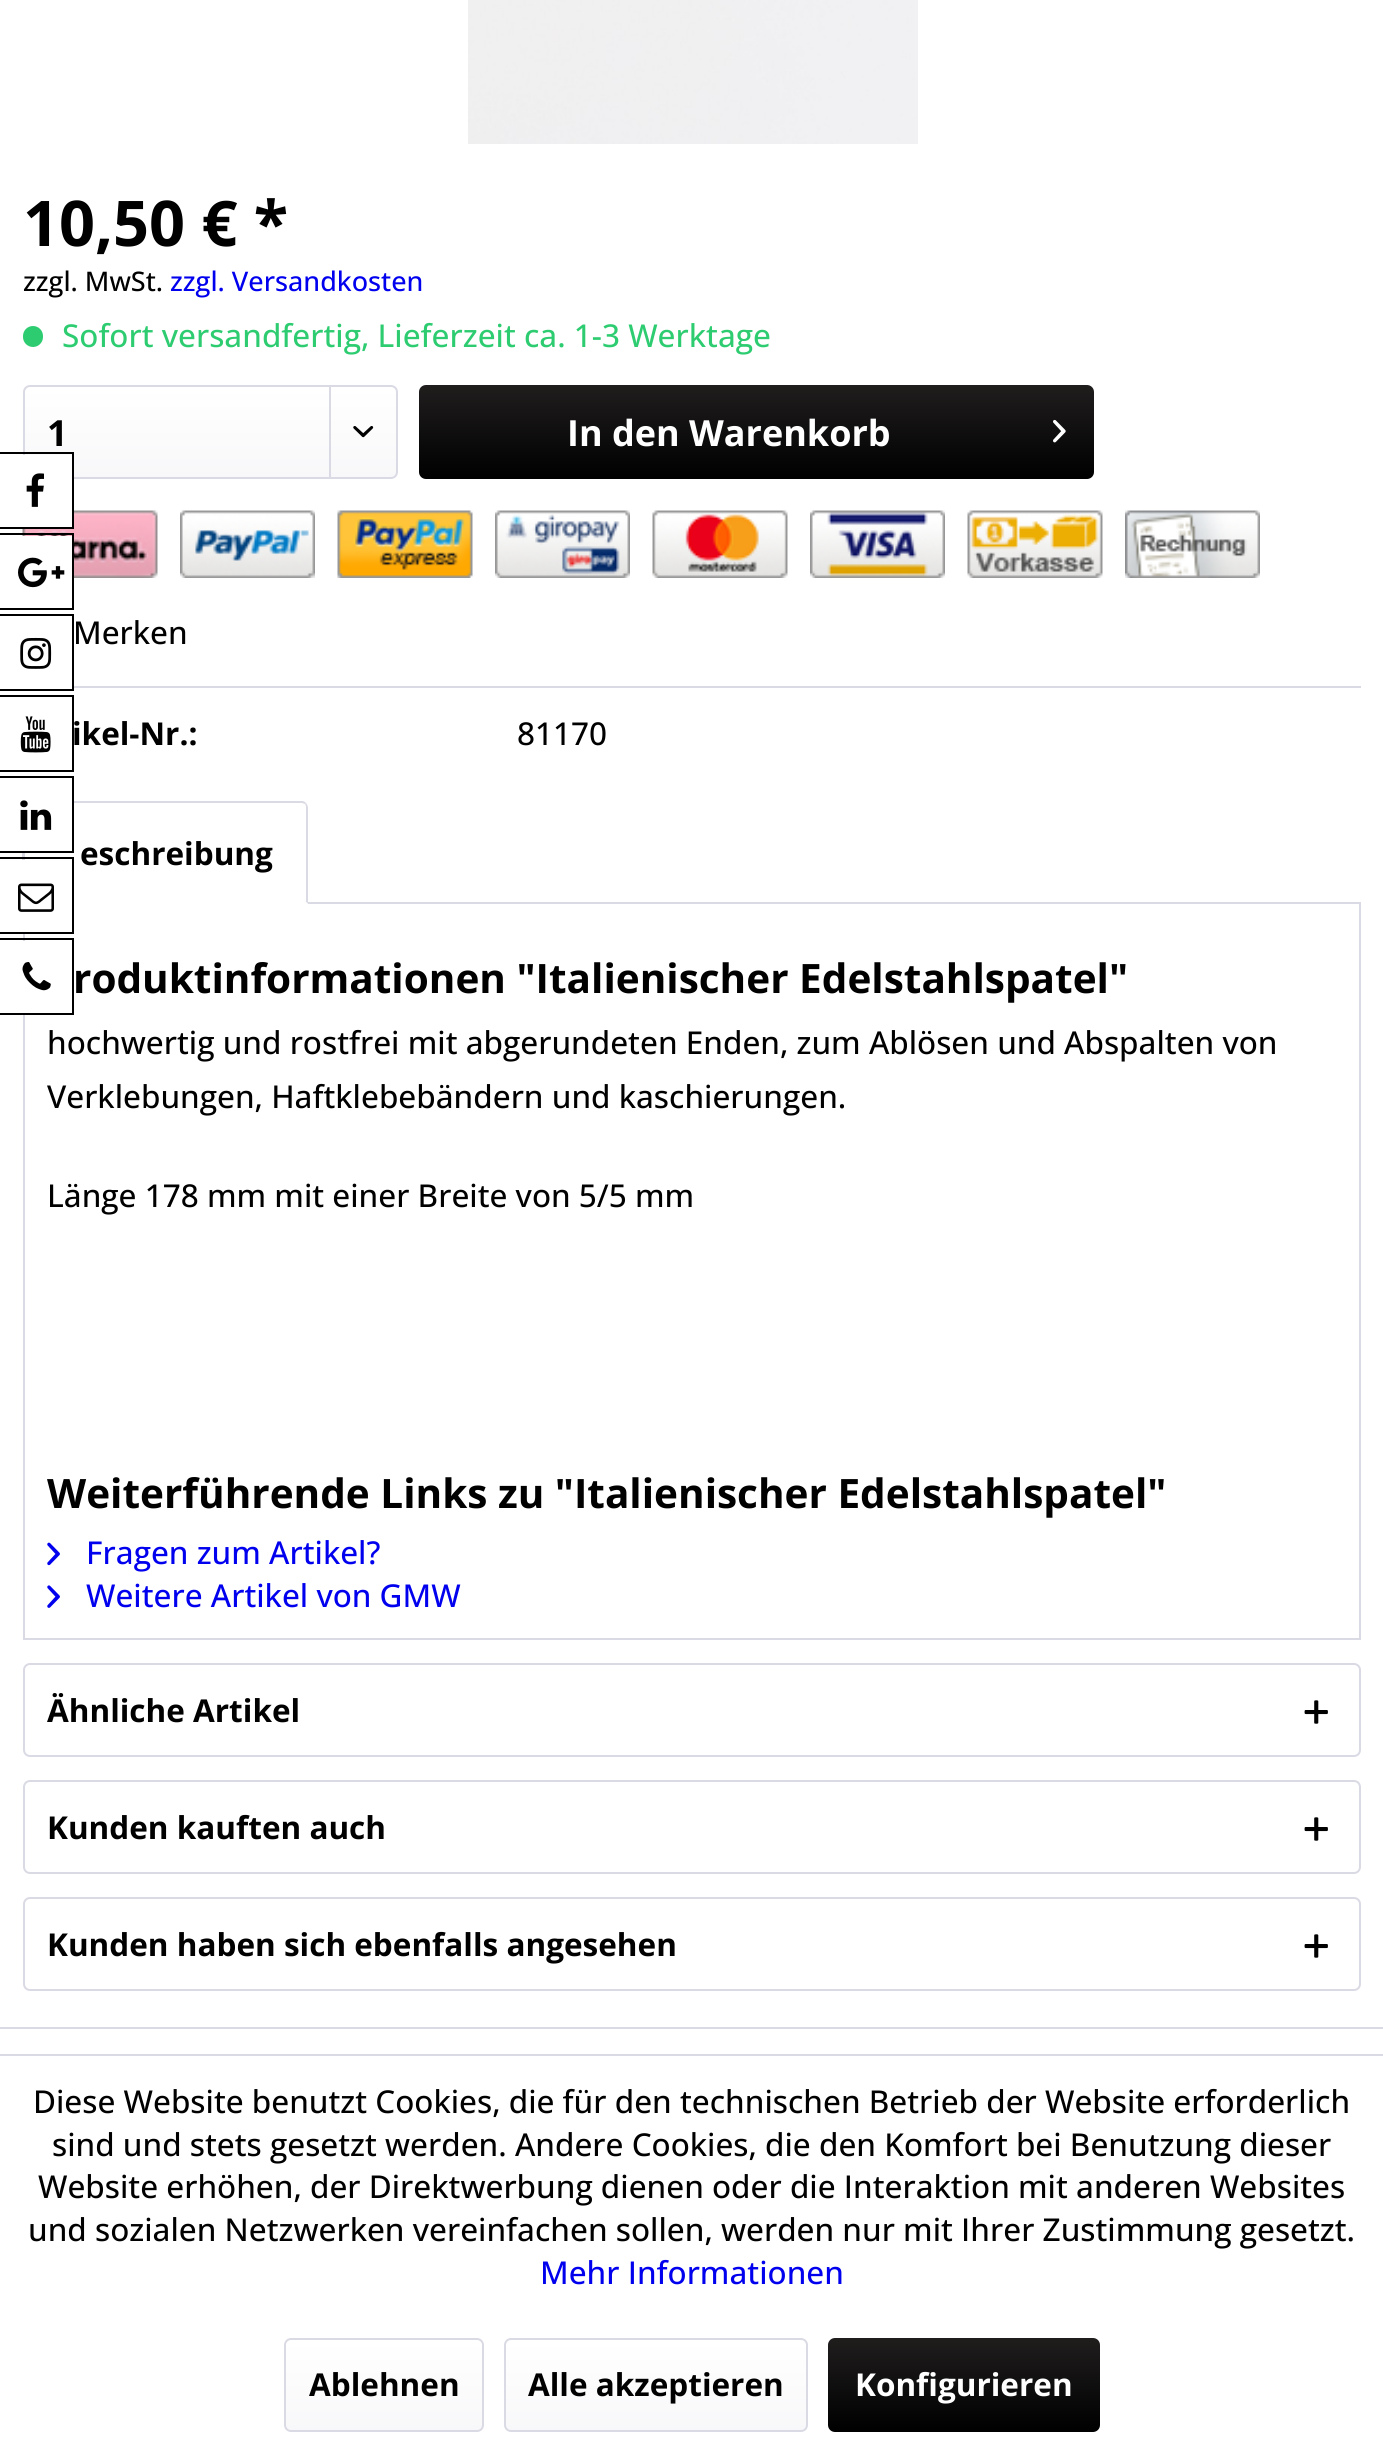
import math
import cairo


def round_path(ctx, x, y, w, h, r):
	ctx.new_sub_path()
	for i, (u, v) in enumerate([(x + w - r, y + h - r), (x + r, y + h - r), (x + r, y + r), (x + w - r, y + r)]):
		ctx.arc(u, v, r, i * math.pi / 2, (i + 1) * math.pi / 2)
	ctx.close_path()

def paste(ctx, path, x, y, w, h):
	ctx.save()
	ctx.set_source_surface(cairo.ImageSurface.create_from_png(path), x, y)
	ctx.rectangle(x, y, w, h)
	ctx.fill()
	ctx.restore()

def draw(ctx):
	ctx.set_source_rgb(1, 1, 1)
	ctx.paint()
	paste(ctx, 'media/1.png', 468, 0, 450, 144)
	ctx.select_font_face('Open Sans', cairo.FONT_SLANT_NORMAL, cairo.FONT_WEIGHT_BOLD)
	ctx.set_font_size(63)
	ctx.set_source_rgb(0, 0, 0)
	ctx.move_to(23, 246)
	ctx.show_text('10,50 € *')
	ctx.select_font_face('Open Sans Medium')
	ctx.set_font_size(27)
	ctx.move_to(23, 291)
	ctx.show_text('zzgl. MwSt.')
	ctx.set_source_rgb(0, 0, 0.933)
	ctx.move_to(170, 291)
	ctx.show_text('zzgl. Versandkosten')
	ctx.set_source_rgb(0.18, 0.8, 0.443)
	round_path(ctx, 23, 326, 20, 21, 10)
	ctx.fill()
	ctx.set_font_size(31.5)
	ctx.move_to(62, 347)
	ctx.show_text('Sofort versandfertig, Lieferzeit ca. 1-3 Werktage')
	gradient = cairo.LinearGradient(210, 387, 210, 477)
	gradient.add_color_stop_rgba(0, 1, 1, 1, 1)
	gradient.add_color_stop_rgba(1, 0.973, 0.973, 0.98, 1)
	ctx.set_source(gradient)
	round_path(ctx, 25, 387, 371, 90, 5)
	ctx.fill()
	round_path(ctx, 24, 386, 373, 92, 6)
	ctx.set_source_rgb(0.855, 0.855, 0.898)
	ctx.stroke()
	ctx.select_font_face('Open Sans', cairo.FONT_SLANT_NORMAL, cairo.FONT_WEIGHT_BOLD)
	ctx.set_font_size(36)
	ctx.set_source_rgb(0, 0, 0)
	ctx.move_to(47, 446)
	ctx.show_text('1')
	ctx.set_source_rgb(0.855, 0.855, 0.898)
	ctx.rectangle(329, 387, 2, 90)
	ctx.fill()
	paste(ctx, 'media/2.png', 353, 426, 21, 12)
	gradient = cairo.LinearGradient(756, 385, 756, 479)
	gradient.add_color_stop_rgba(0, 0.125, 0.114, 0.114, 1)
	gradient.add_color_stop_rgba(1, 0, 0, 0, 1)
	ctx.set_source(gradient)
	round_path(ctx, 419, 385, 675, 94, 7)
	ctx.fill()
	ctx.set_source_rgb(1, 1, 1)
	ctx.move_to(567, 446)
	ctx.show_text('In den Warenkorb')
	paste(ctx, 'media/3.png', 1053, 419, 13, 24)
	paste(ctx, 'media/4.png', 22, 510, 136, 68)
	paste(ctx, 'media/5.png', 180, 510, 135, 68)
	paste(ctx, 'media/6.png', 337, 510, 136, 68)
	paste(ctx, 'media/7.png', 495, 510, 135, 68)
	paste(ctx, 'media/8.png', 652, 510, 136, 68)
	paste(ctx, 'media/9.png', 810, 510, 135, 68)
	paste(ctx, 'media/10.png', 967, 510, 136, 68)
	paste(ctx, 'media/11.png', 1125, 510, 135, 68)
	ctx.set_source_rgb(0.855, 0.855, 0.898)
	ctx.rectangle(74, 686, 1287, 2)
	ctx.fill()
	ctx.select_font_face('Open Sans Medium')
	ctx.set_font_size(31.5)
	ctx.set_source_rgb(0, 0, 0)
	ctx.move_to(73, 644)
	ctx.show_text('Merken')
	ctx.select_font_face('Open Sans', cairo.FONT_SLANT_NORMAL, cairo.FONT_WEIGHT_BOLD)
	ctx.move_to(72, 745)
	ctx.show_text('ikel-Nr.:')
	ctx.select_font_face('Open Sans Medium')
	ctx.move_to(517, 745)
	ctx.show_text('81170')
	ctx.rectangle(24, 903, 1336, 736)
	ctx.set_source_rgb(0.855, 0.855, 0.898)
	ctx.stroke()
	ctx.set_source_rgb(1, 1, 1)
	ctx.new_path()
	ctx.move_to(30, 801)
	ctx.line_to(301, 801)
	ctx.curve_to(305, 801, 308, 804, 308, 808)
	ctx.line_to(308, 905)
	ctx.line_to(23, 905)
	ctx.line_to(23, 808)
	ctx.curve_to(23, 804, 26, 801, 30, 801)
	ctx.close_path()
	ctx.fill()
	ctx.set_source_rgb(0.855, 0.855, 0.898)
	ctx.new_path()
	ctx.move_to(29, 801)
	ctx.curve_to(28, 801, 26, 802, 24, 803)
	ctx.line_to(26, 805)
	ctx.curve_to(27, 804, 28, 803, 29, 803)
	ctx.line_to(302, 803)
	ctx.curve_to(303, 803, 304, 804, 305, 804)
	ctx.line_to(306, 803)
	ctx.curve_to(305, 802, 304, 801, 302, 801)
	ctx.close_path()
	ctx.fill()
	ctx.new_path()
	ctx.move_to(306, 803)
	ctx.curve_to(307, 804, 308, 806, 308, 808)
	ctx.line_to(308, 904)
	ctx.line_to(306, 902)
	ctx.line_to(306, 808)
	ctx.curve_to(306, 807, 306, 805, 305, 804)
	ctx.close_path()
	ctx.fill()
	ctx.set_source_rgb(1, 1, 1)
	ctx.new_path()
	ctx.move_to(308, 904)
	ctx.line_to(23, 904)
	ctx.line_to(25, 902)
	ctx.line_to(306, 902)
	ctx.close_path()
	ctx.fill()
	ctx.set_source_rgb(0.855, 0.855, 0.898)
	ctx.new_path()
	ctx.move_to(22, 806)
	ctx.line_to(24, 803)
	ctx.line_to(26, 805)
	ctx.curve_to(25, 805, 25, 807, 25, 808)
	ctx.line_to(25, 902)
	ctx.line_to(22, 904)
	ctx.close_path()
	ctx.fill()
	ctx.select_font_face('Open Sans', cairo.FONT_SLANT_NORMAL, cairo.FONT_WEIGHT_BOLD)
	ctx.set_source_rgb(0, 0, 0)
	ctx.move_to(80, 865)
	ctx.show_text('eschreibung')
	ctx.set_font_size(40.5)
	ctx.move_to(73, 993)
	ctx.show_text('roduktinformationen "Italienischer Edelstahlspatel"')
	ctx.select_font_face('Open Sans Medium')
	ctx.set_font_size(31.5)
	for x, y, s in [
		(47, 1054, 'hochwertig und rostfrei mit abgerundeten Enden, zum Ablösen und Abspalten von'),
		(47, 1108, 'Verklebungen, Haftklebebändern und kaschierungen.'),
		(47, 1207, 'Länge 178 mm mit einer Breite von 5/5 mm'),
	]:
		ctx.move_to(x, y)
		ctx.show_text(s)
	ctx.select_font_face('Open Sans', cairo.FONT_SLANT_NORMAL, cairo.FONT_WEIGHT_BOLD)
	ctx.set_font_size(40.5)
	ctx.move_to(47, 1508)
	ctx.show_text('Weiterführende Links zu "Italienischer Edelstahlspatel"')
	paste(ctx, 'media/12.png', 47, 1542, 13, 24)
	ctx.select_font_face('Open Sans Medium')
	ctx.set_font_size(31.5)
	ctx.set_source_rgb(0, 0, 0.933)
	ctx.move_to(86, 1564)
	ctx.show_text('Fragen zum Artikel?')
	paste(ctx, 'media/13.png', 47, 1585, 13, 23)
	ctx.move_to(86, 1607)
	ctx.show_text('Weitere Artikel von GMW')
	round_path(ctx, 24, 1664, 1336, 92, 6)
	ctx.set_source_rgb(0.855, 0.855, 0.898)
	ctx.stroke()
	ctx.select_font_face('Open Sans', cairo.FONT_SLANT_NORMAL, cairo.FONT_WEIGHT_BOLD)
	ctx.set_source_rgb(0, 0, 0)
	ctx.move_to(47, 1722)
	ctx.show_text('Ähnliche Artikel')
	paste(ctx, 'media/14.png', 1304, 1700, 24, 24)
	round_path(ctx, 24, 1781, 1336, 92, 6)
	ctx.set_source_rgb(0.855, 0.855, 0.898)
	ctx.stroke()
	ctx.set_source_rgb(0, 0, 0)
	ctx.move_to(47, 1839)
	ctx.show_text('Kunden kauften auch')
	paste(ctx, 'media/14.png', 1304, 1817, 24, 24)
	round_path(ctx, 24, 1898, 1336, 92, 6)
	ctx.set_source_rgb(0.855, 0.855, 0.898)
	ctx.stroke()
	ctx.set_source_rgb(0, 0, 0)
	ctx.move_to(47, 1956)
	ctx.show_text('Kunden haben sich ebenfalls angesehen')
	paste(ctx, 'media/14.png', 1304, 1934, 24, 24)
	ctx.set_source_rgb(1, 1, 1)
	ctx.rectangle(22, 455, 50, 72)
	ctx.fill()
	ctx.set_source_rgb(0, 0, 0)
	ctx.rectangle(0, 452, 74, 2)
	ctx.rectangle(72, 452, 2, 77)
	ctx.rectangle(0, 527, 74, 2)
	ctx.fill()
	paste(ctx, 'media/15.png', 26, 473, 18, 34)
	ctx.set_source_rgb(1, 1, 1)
	ctx.rectangle(22, 536, 50, 42)
	ctx.fill()
	ctx.set_source_rgb(0, 0, 0)
	ctx.rectangle(0, 533, 74, 2)
	ctx.rectangle(72, 533, 2, 77)
	ctx.rectangle(0, 608, 74, 2)
	ctx.fill()
	paste(ctx, 'media/16.png', 18, 557, 47, 31)
	ctx.rectangle(0, 614, 74, 2)
	ctx.rectangle(72, 614, 2, 77)
	ctx.rectangle(0, 689, 74, 2)
	ctx.fill()
	paste(ctx, 'media/17.png', 20, 637, 32, 32)
	ctx.rectangle(0, 695, 74, 2)
	ctx.rectangle(72, 695, 2, 77)
	ctx.rectangle(0, 770, 74, 2)
	ctx.fill()
	paste(ctx, 'media/18.png', 20, 716, 31, 37)
	ctx.set_source_rgb(1, 1, 1)
	ctx.rectangle(22, 801, 50, 50)
	ctx.fill()
	ctx.set_source_rgb(0, 0, 0)
	ctx.rectangle(0, 776, 74, 2)
	ctx.rectangle(72, 776, 2, 77)
	ctx.rectangle(0, 851, 74, 2)
	ctx.fill()
	paste(ctx, 'media/19.png', 20, 800, 32, 30)
	ctx.set_source_rgb(1, 1, 1)
	ctx.rectangle(22, 860, 3, 72)
	ctx.fill()
	ctx.set_source_rgb(0, 0, 0)
	ctx.rectangle(0, 857, 74, 2)
	ctx.rectangle(72, 857, 2, 77)
	ctx.rectangle(0, 932, 74, 2)
	ctx.fill()
	paste(ctx, 'media/20.png', 18, 883, 36, 29)
	ctx.set_source_rgb(1, 1, 1)
	ctx.rectangle(23, 941, 2, 72)
	ctx.fill()
	ctx.set_source_rgb(0, 0, 0)
	ctx.rectangle(0, 938, 74, 2)
	ctx.rectangle(72, 938, 2, 77)
	ctx.rectangle(0, 1013, 74, 2)
	ctx.fill()
	paste(ctx, 'media/21.png', 22, 962, 29, 29)
	ctx.set_source_rgb(0.855, 0.855, 0.898)
	ctx.rectangle(0, 2027, 1383, 2)
	ctx.fill()
	ctx.rectangle(0, 2054, 1383, 2)
	ctx.fill()
	ctx.select_font_face('Open Sans Medium')
	ctx.set_source_rgb(0, 0, 0)
	for x, y, s in [
		(33, 2113, 'Diese Website benutzt Cookies, die für den technischen Betrieb der Website erforderlich'),
		(52, 2156, 'sind und stets gesetzt werden. Andere Cookies, die den Komfort bei Benutzung dieser'),
		(38, 2198, 'Website erhöhen, der Direktwerbung dienen oder die Interaktion mit anderen Websites'),
		(28, 2241, 'und sozialen Netzwerken vereinfachen sollen, werden nur mit Ihrer Zustimmung gesetzt.'),
	]:
		ctx.move_to(x, y)
		ctx.show_text(s)
	ctx.set_source_rgb(0, 0, 0.933)
	ctx.move_to(540, 2284)
	ctx.show_text('Mehr Informationen')
	gradient = cairo.LinearGradient(384, 2340, 384, 2430)
	gradient.add_color_stop_rgba(0, 1, 1, 1, 1)
	gradient.add_color_stop_rgba(1, 0.973, 0.973, 0.98, 1)
	ctx.set_source(gradient)
	round_path(ctx, 286, 2340, 196, 90, 5)
	ctx.fill()
	round_path(ctx, 285, 2339, 198, 92, 6)
	ctx.set_source_rgb(0.855, 0.855, 0.898)
	ctx.stroke()
	ctx.select_font_face('Open Sans', cairo.FONT_SLANT_NORMAL, cairo.FONT_WEIGHT_BOLD)
	ctx.set_source_rgb(0, 0, 0)
	ctx.move_to(309, 2396)
	ctx.show_text('Ablehnen')
	gradient = cairo.LinearGradient(656, 2340, 656, 2430)
	gradient.add_color_stop_rgba(0, 1, 1, 1, 1)
	gradient.add_color_stop_rgba(1, 0.973, 0.973, 0.98, 1)
	ctx.set_source(gradient)
	round_path(ctx, 506, 2340, 300, 90, 5)
	ctx.fill()
	round_path(ctx, 505, 2339, 302, 92, 6)
	ctx.set_source_rgb(0.855, 0.855, 0.898)
	ctx.stroke()
	ctx.set_source_rgb(0, 0, 0)
	ctx.move_to(528, 2396)
	ctx.show_text('Alle akzeptieren')
	gradient = cairo.LinearGradient(964, 2338, 964, 2432)
	gradient.add_color_stop_rgba(0, 0.125, 0.114, 0.114, 1)
	gradient.add_color_stop_rgba(1, 0, 0, 0, 1)
	ctx.set_source(gradient)
	round_path(ctx, 828, 2338, 272, 94, 7)
	ctx.fill()
	ctx.set_source_rgb(1, 1, 1)
	ctx.move_to(855, 2396)
	ctx.show_text('Konfigurieren')


surface = cairo.ImageSurface(cairo.FORMAT_RGB24, 1383, 2453)
ctx = cairo.Context(surface)
options = cairo.FontOptions()
options.set_hint_metrics(cairo.HINT_METRICS_OFF)
options.set_hint_style(cairo.HINT_STYLE_NONE)
ctx.set_font_options(options)
ctx.set_miter_limit(4)
draw(ctx)
surface.write_to_png('image.png')
